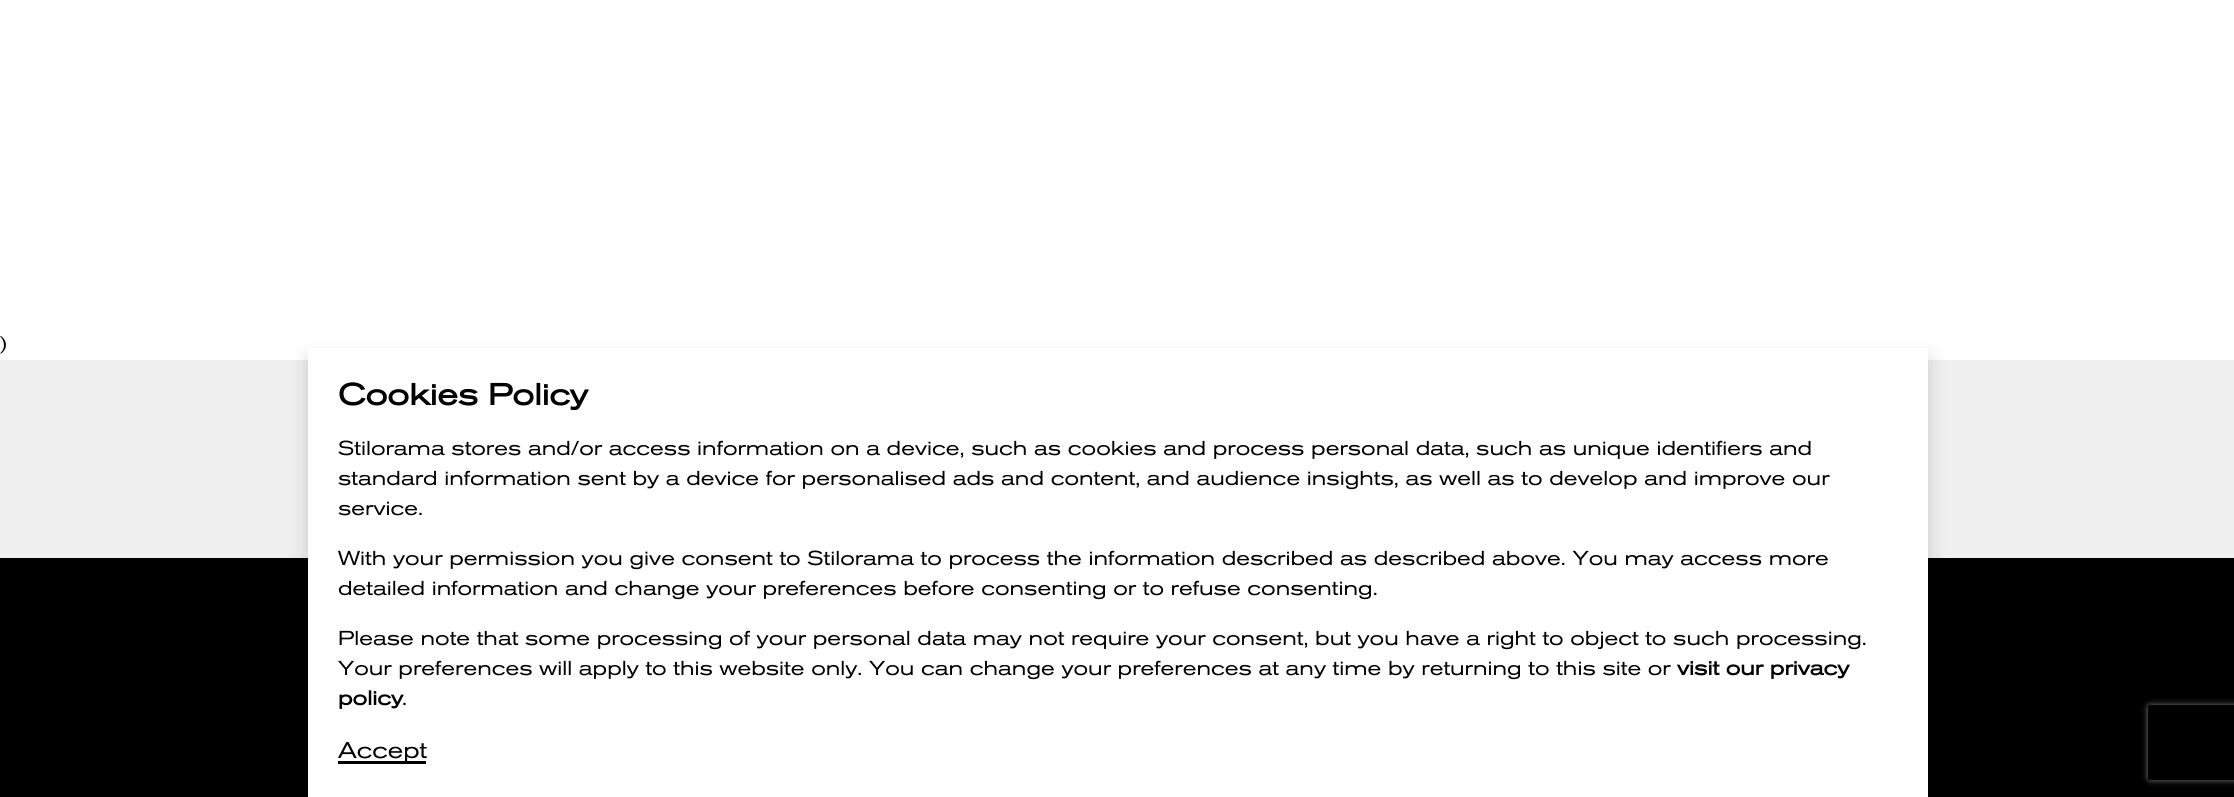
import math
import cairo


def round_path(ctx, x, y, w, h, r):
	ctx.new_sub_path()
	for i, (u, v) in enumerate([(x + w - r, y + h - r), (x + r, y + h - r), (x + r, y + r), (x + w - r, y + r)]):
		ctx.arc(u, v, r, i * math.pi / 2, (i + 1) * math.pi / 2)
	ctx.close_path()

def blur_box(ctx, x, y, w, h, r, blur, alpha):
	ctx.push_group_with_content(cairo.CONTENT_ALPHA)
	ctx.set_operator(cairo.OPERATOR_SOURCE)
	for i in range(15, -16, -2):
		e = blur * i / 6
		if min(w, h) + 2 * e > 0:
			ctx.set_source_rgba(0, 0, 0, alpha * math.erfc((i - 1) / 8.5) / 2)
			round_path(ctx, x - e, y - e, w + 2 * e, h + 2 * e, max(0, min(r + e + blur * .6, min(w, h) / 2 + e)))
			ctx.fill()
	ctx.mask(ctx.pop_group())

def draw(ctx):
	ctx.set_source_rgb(1, 1, 1)
	ctx.paint()
	ctx.select_font_face('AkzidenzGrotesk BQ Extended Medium')
	ctx.set_font_size(20)
	ctx.set_source_rgb(0, 0, 0)
	ctx.move_to(0, 351)
	ctx.show_text(')')
	ctx.set_source_rgb(0.937, 0.937, 0.941)
	ctx.rectangle(0, 360, 2234, 198)
	ctx.fill()
	ctx.set_source_rgb(0, 0, 0)
	ctx.rectangle(0, 558, 2234, 239)
	ctx.fill()
	ctx.set_source_rgb(0, 0, 0)
	blur_box(ctx, 308, 358, 1620, 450, 0, 10, 0.15)
	ctx.set_source_rgb(1, 1, 1)
	ctx.rectangle(308, 348, 1620, 449)
	ctx.fill()
	ctx.select_font_face('AkzidenzGrotesk BQ Extended', cairo.FONT_SLANT_NORMAL, cairo.FONT_WEIGHT_BOLD)
	ctx.set_font_size(30)
	ctx.set_source_rgb(0, 0, 0)
	ctx.move_to(338, 405)
	ctx.show_text('Cookies Policy')
	ctx.select_font_face('AkzidenzGrotesk BQ Extended Medium')
	ctx.set_font_size(20)
	for x, y, s in [
		(338, 455, 'Stilorama stores and/or access information on a device, such as cookies and process personal data, such as unique identifiers and'),
		(338, 485, 'standard information sent by a device for personalised ads and content, and audience insights, as well as to develop and improve our'),
		(338, 515, 'service.'),
		(338, 565, 'With your permission you give consent to Stilorama to process the information described as described above. You may access more'),
		(338, 595, 'detailed information and change your preferences before consenting or to refuse consenting.'),
		(338, 645, 'Please note that some processing of your personal data may not require your consent, but you have a right to object to such processing.'),
		(338, 675, 'Your preferences will apply to this website only. You can change your preferences at any time by returning to this site or'),
	]:
		ctx.move_to(x, y)
		ctx.show_text(s)
	ctx.select_font_face('AkzidenzGrotesk BQ Extended', cairo.FONT_SLANT_NORMAL, cairo.FONT_WEIGHT_BOLD)
	ctx.move_to(1677, 675)
	ctx.show_text('visit our privacy')
	ctx.move_to(338, 705)
	ctx.show_text('policy')
	ctx.select_font_face('AkzidenzGrotesk BQ Extended Medium')
	ctx.move_to(402, 705)
	ctx.show_text('.')
	ctx.set_font_size(22.5)
	ctx.move_to(338, 758)
	ctx.show_text('Accept')
	ctx.rectangle(338, 761, 88, 3)
	ctx.fill()
	ctx.save()
	ctx.set_fill_rule(cairo.FILL_RULE_EVEN_ODD)
	ctx.new_path()
	ctx.move_to(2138, 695)
	ctx.line_to(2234, 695)
	ctx.line_to(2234, 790)
	ctx.line_to(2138, 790)
	ctx.close_path()
	ctx.move_to(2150.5, 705)
	ctx.line_to(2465.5, 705)
	ctx.curve_to(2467, 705, 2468, 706, 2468, 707.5)
	ctx.line_to(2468, 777.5)
	ctx.curve_to(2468, 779, 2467, 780, 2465.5, 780)
	ctx.line_to(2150.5, 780)
	ctx.curve_to(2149, 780, 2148, 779, 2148, 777.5)
	ctx.line_to(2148, 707.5)
	ctx.curve_to(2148, 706, 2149, 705, 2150.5, 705)
	ctx.close_path()
	ctx.clip()
	ctx.set_source_rgb(0.502, 0.502, 0.502)
	blur_box(ctx, 2148, 705, 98, 75, 2.5, 3, 1)
	ctx.restore()


surface = cairo.ImageSurface(cairo.FORMAT_RGB24, 2234, 797)
ctx = cairo.Context(surface)
options = cairo.FontOptions()
options.set_hint_metrics(cairo.HINT_METRICS_OFF)
options.set_hint_style(cairo.HINT_STYLE_NONE)
ctx.set_font_options(options)
ctx.set_miter_limit(4)
draw(ctx)
surface.write_to_png('image.png')
